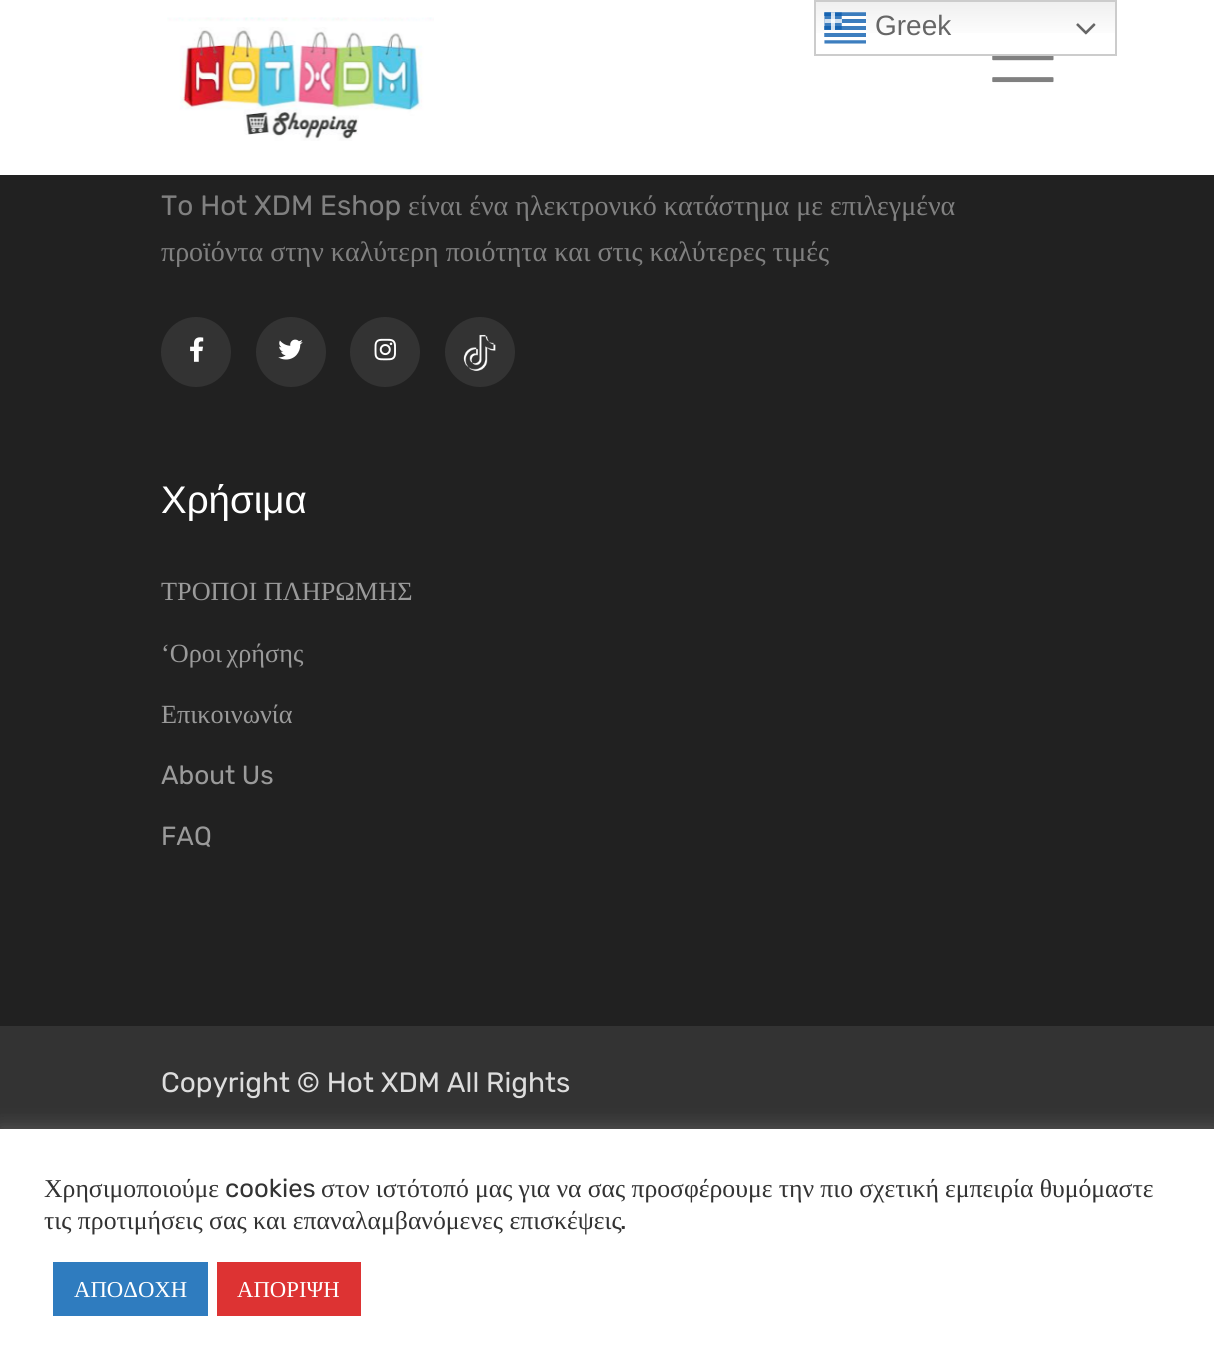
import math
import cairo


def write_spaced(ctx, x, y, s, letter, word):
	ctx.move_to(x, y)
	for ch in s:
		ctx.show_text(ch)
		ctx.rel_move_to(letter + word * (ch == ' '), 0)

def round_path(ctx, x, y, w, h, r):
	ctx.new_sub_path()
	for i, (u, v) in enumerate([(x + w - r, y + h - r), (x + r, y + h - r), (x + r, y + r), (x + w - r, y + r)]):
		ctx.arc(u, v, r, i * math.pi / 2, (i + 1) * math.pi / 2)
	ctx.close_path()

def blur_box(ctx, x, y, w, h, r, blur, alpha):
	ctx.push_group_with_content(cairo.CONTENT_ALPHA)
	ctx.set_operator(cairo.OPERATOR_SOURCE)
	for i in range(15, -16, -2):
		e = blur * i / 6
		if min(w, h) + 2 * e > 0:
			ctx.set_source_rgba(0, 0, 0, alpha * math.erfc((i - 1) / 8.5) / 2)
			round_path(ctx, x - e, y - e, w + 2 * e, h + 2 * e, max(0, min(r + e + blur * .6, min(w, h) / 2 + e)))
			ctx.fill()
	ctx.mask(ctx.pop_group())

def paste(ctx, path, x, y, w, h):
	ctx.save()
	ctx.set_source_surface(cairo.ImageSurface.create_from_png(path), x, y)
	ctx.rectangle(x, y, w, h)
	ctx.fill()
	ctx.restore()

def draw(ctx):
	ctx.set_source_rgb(0.2, 0.2, 0.2)
	ctx.paint()
	ctx.set_source_rgb(1, 1, 1)
	ctx.rectangle(0, 0, 1214, 175)
	ctx.fill()
	paste(ctx, 'media/1.png', 167, 17, 267, 124)
	paste(ctx, 'media/2.png', 992, 56, 62, 27)
	gradient = cairo.LinearGradient(965, 0, 965, 56)
	gradient.add_color_stop_rgba(0, 0.937, 0.937, 0.937, 1)
	gradient.add_color_stop_rgba(0.7, 1, 1, 1, 1)
	ctx.set_source(gradient)
	ctx.rectangle(816, 2, 299, 31)
	ctx.fill()
	ctx.rectangle(815, 1, 301, 54)
	ctx.set_source_rgb(0.8, 0.8, 0.8)
	ctx.stroke()
	paste(ctx, 'media/3.png', 824, 12, 42, 32)
	ctx.select_font_face('Liberation Sans')
	ctx.set_font_size(28)
	ctx.set_source_rgb(0.4, 0.4, 0.4)
	ctx.move_to(875, 35)
	ctx.show_text('Greek')
	paste(ctx, 'media/4.png', 1076, 23, 20, 12)
	ctx.set_source_rgb(0.129, 0.129, 0.129)
	ctx.rectangle(0, 175, 1214, 851)
	ctx.fill()
	ctx.select_font_face('Rubik Light')
	ctx.set_source_rgb(0.502, 0.502, 0.502)
	ctx.move_to(161, 215)
	ctx.show_text('To Hot XDM Eshop')
	ctx.select_font_face('Liberation Serif')
	ctx.move_to(408, 215)
	ctx.show_text('είναι ένα ηλεκτρονικό κατάστημα με επιλεγμένα')
	ctx.move_to(161, 261)
	ctx.show_text('προϊόντα στην καλύτερη ποιότητα και στις καλύτερες τιμές')
	ctx.set_source_rgb(0.2, 0.2, 0.2)
	ctx.new_path()
	ctx.arc(196, 352, 35, 0, 2 * math.pi)
	ctx.fill()
	paste(ctx, 'media/5.png', 190, 337, 14, 25)
	ctx.arc(291, 352, 35, 0, 2 * math.pi)
	ctx.fill()
	paste(ctx, 'media/6.png', 278, 339, 25, 21)
	ctx.arc(385, 352, 35, 0, 2 * math.pi)
	ctx.fill()
	paste(ctx, 'media/7.png', 374, 338, 22, 23)
	ctx.arc(480, 352, 35, 0, 2 * math.pi)
	ctx.fill()
	paste(ctx, 'media/8.png', 463, 334, 33, 37)
	ctx.select_font_face('Liberation Sans')
	ctx.set_font_size(38.5)
	ctx.set_source_rgb(1, 1, 1)
	ctx.move_to(161, 513)
	ctx.show_text('Χρήσιμα')
	ctx.select_font_face('Liberation Serif')
	ctx.set_font_size(26.25)
	ctx.set_source_rgb(0.604, 0.604, 0.604)
	ctx.move_to(161, 600)
	ctx.show_text('ΤΡΟΠΟΙ ΠΛΗΡΩΜΗΣ')
	write_spaced(ctx, 161, 662, '‘Οροι χρήσης', 0, -2)
	ctx.move_to(161, 723)
	ctx.show_text('Επικοινωνία')
	ctx.select_font_face('Rubik Light')
	ctx.move_to(161, 784)
	ctx.show_text('About Us')
	ctx.move_to(161, 845)
	ctx.show_text('FAQ')
	ctx.set_font_size(28)
	ctx.set_source_rgb(0.867, 0.867, 0.867)
	ctx.move_to(161, 1092)
	ctx.show_text('Copyright © Hot XDM All Rights')
	ctx.set_source_rgb(0.675, 0.671, 0.671)
	blur_box(ctx, 0, 1127, 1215, 240, 0, 9, 0.3)
	ctx.set_source_rgb(1, 1, 1)
	ctx.rectangle(0, 1129, 1214, 239)
	ctx.fill()
	ctx.select_font_face('Liberation Serif')
	ctx.set_font_size(25.7)
	ctx.set_source_rgb(0.2, 0.2, 0.2)
	ctx.move_to(44, 1197)
	ctx.show_text('Χρησιμοποιούμε')
	ctx.select_font_face('Rubik Light')
	ctx.move_to(225, 1197)
	ctx.show_text('cookies')
	ctx.select_font_face('Liberation Serif')
	write_spaced(ctx, 321, 1197, 'στον ιστότοπό μας για να σας προσφέρουμε την πιο σχετική εμπειρία θυμόμαστε', 0, -0.25)
	ctx.move_to(44, 1229)
	ctx.show_text('τις προτιμήσεις σας και επαναλαμβανόμενες επισκέψεις')
	ctx.select_font_face('Rubik Light')
	ctx.move_to(620, 1229)
	ctx.show_text('.')
	ctx.set_source_rgb(0.184, 0.486, 0.749)
	ctx.rectangle(53, 1262, 155, 54)
	ctx.fill()
	ctx.select_font_face('Liberation Serif')
	ctx.set_font_size(22.75)
	ctx.set_source_rgb(1, 1, 1)
	ctx.move_to(74, 1297)
	ctx.show_text('ΑΠΟΔΟΧΗ')
	ctx.set_source_rgb(0.867, 0.2, 0.2)
	ctx.rectangle(217, 1262, 144, 54)
	ctx.fill()
	ctx.set_source_rgb(1, 1, 1)
	ctx.move_to(237, 1297)
	ctx.show_text('ΑΠΟΡΙΨΗ')


surface = cairo.ImageSurface(cairo.FORMAT_RGB24, 1214, 1368)
ctx = cairo.Context(surface)
options = cairo.FontOptions()
options.set_hint_metrics(cairo.HINT_METRICS_OFF)
options.set_hint_style(cairo.HINT_STYLE_NONE)
ctx.set_font_options(options)
ctx.set_miter_limit(4)
draw(ctx)
surface.write_to_png('image.png')
